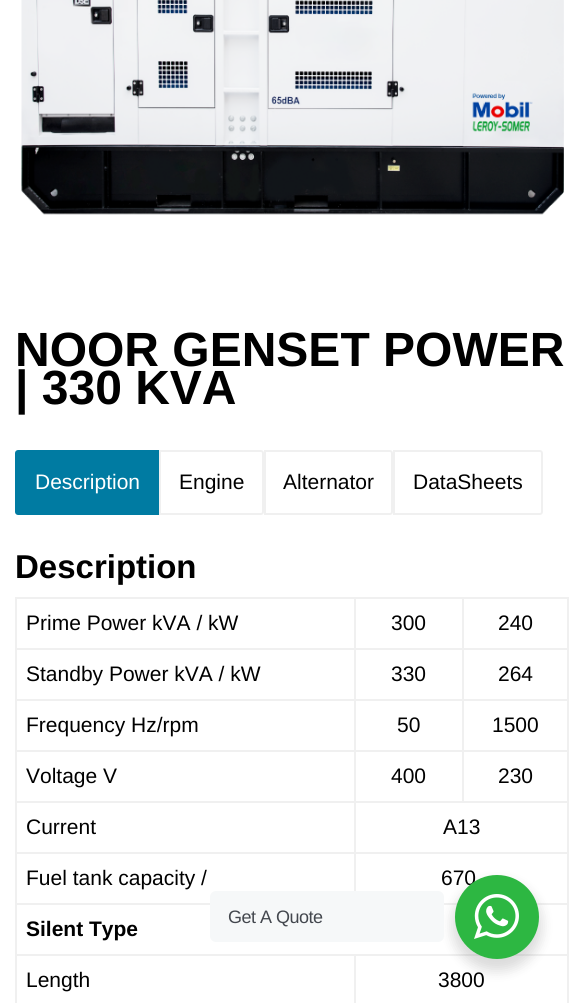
import math
import cairo


def write_spaced(ctx, x, y, s, letter, word):
	ctx.move_to(x, y)
	for ch in s:
		ctx.show_text(ch)
		ctx.rel_move_to(letter + word * (ch == ' '), 0)

def round_path(ctx, x, y, w, h, r):
	ctx.new_sub_path()
	for i, (u, v) in enumerate([(x + w - r, y + h - r), (x + r, y + h - r), (x + r, y + r), (x + w - r, y + r)]):
		ctx.arc(u, v, r, i * math.pi / 2, (i + 1) * math.pi / 2)
	ctx.close_path()

def blur_box(ctx, x, y, w, h, r, blur, alpha):
	ctx.push_group_with_content(cairo.CONTENT_ALPHA)
	ctx.set_operator(cairo.OPERATOR_SOURCE)
	for i in range(15, -16, -2):
		e = blur * i / 6
		if min(w, h) + 2 * e > 0:
			ctx.set_source_rgba(0, 0, 0, alpha * math.erfc((i - 1) / 8.5) / 2)
			round_path(ctx, x - e, y - e, w + 2 * e, h + 2 * e, max(0, min(r + e + blur * .6, min(w, h) / 2 + e)))
			ctx.fill()
	ctx.mask(ctx.pop_group())

def paste(ctx, path, x, y, w, h):
	ctx.save()
	ctx.set_source_surface(cairo.ImageSurface.create_from_png(path), x, y)
	ctx.rectangle(x, y, w, h)
	ctx.fill()
	ctx.restore()

def draw(ctx):
	ctx.set_source_rgb(1, 1, 1)
	ctx.paint()
	paste(ctx, 'media/1.png', 21, 0, 543, 215)
	ctx.select_font_face('Liberation Sans', cairo.FONT_SLANT_NORMAL, cairo.FONT_WEIGHT_BOLD)
	ctx.set_font_size(48)
	ctx.set_source_rgb(0, 0, 0)
	ctx.move_to(15, 366)
	ctx.show_text('NOOR GENSET POWER')
	ctx.move_to(15, 404)
	ctx.show_text('| 330 KVA')
	ctx.set_source_rgb(0, 0.482, 0.635)
	ctx.new_path()
	ctx.move_to(18, 451)
	ctx.line_to(158, 451)
	ctx.line_to(158, 514)
	ctx.line_to(18, 514)
	ctx.curve_to(17, 514, 16, 513, 16, 512)
	ctx.line_to(16, 453)
	ctx.curve_to(16, 452, 17, 451, 18, 451)
	ctx.close_path()
	ctx.fill_preserve()
	ctx.stroke()
	ctx.select_font_face('Liberation Sans')
	ctx.set_font_size(21)
	ctx.set_source_rgb(1, 1, 1)
	ctx.move_to(35, 489)
	ctx.show_text('Description')
	ctx.new_path()
	ctx.move_to(160, 451)
	ctx.line_to(261, 451)
	ctx.curve_to(262, 451, 263, 452, 263, 453)
	ctx.line_to(263, 512)
	ctx.curve_to(263, 513, 262, 514, 261, 514)
	ctx.line_to(160, 514)
	ctx.close_path()
	ctx.set_source_rgb(0.941, 0.941, 0.941)
	ctx.stroke()
	ctx.set_source_rgb(0, 0, 0)
	ctx.move_to(179, 489)
	ctx.show_text('Engine')
	ctx.new_path()
	ctx.move_to(265, 451)
	ctx.line_to(390, 451)
	ctx.curve_to(391, 451, 392, 452, 392, 453)
	ctx.line_to(392, 512)
	ctx.curve_to(392, 513, 391, 514, 390, 514)
	ctx.line_to(265, 514)
	ctx.close_path()
	ctx.set_source_rgb(0.941, 0.941, 0.941)
	ctx.stroke()
	ctx.set_source_rgb(0, 0, 0)
	ctx.move_to(283, 489)
	ctx.show_text('Alternator')
	ctx.new_path()
	ctx.move_to(394, 451)
	ctx.line_to(540, 451)
	ctx.curve_to(541, 451, 542, 452, 542, 453)
	ctx.line_to(542, 512)
	ctx.curve_to(542, 513, 541, 514, 540, 514)
	ctx.line_to(394, 514)
	ctx.close_path()
	ctx.set_source_rgb(0.941, 0.941, 0.941)
	ctx.stroke()
	ctx.set_source_rgb(0, 0, 0)
	ctx.move_to(413, 489)
	ctx.show_text('DataSheets')
	ctx.select_font_face('Liberation Sans', cairo.FONT_SLANT_NORMAL, cairo.FONT_WEIGHT_BOLD)
	ctx.set_font_size(33)
	ctx.move_to(15, 578)
	ctx.show_text('Description')
	ctx.set_source_rgb(0.941, 0.941, 0.941)
	ctx.rectangle(462, 597, 107, 2)
	ctx.rectangle(462, 648, 107, 2)
	ctx.rectangle(462, 699, 107, 2)
	ctx.rectangle(462, 750, 107, 2)
	ctx.rectangle(354, 801, 215, 2)
	ctx.rectangle(462, 750, 2, 53)
	ctx.rectangle(354, 750, 110, 2)
	ctx.rectangle(462, 699, 2, 53)
	ctx.rectangle(354, 699, 110, 2)
	ctx.rectangle(462, 648, 2, 53)
	ctx.rectangle(354, 648, 110, 2)
	ctx.rectangle(462, 597, 2, 53)
	ctx.rectangle(354, 597, 110, 2)
	ctx.rectangle(354, 852, 215, 2)
	ctx.rectangle(354, 852, 2, 39)
	ctx.rectangle(15, 852, 341, 2)
	ctx.rectangle(354, 801, 2, 53)
	ctx.rectangle(15, 801, 341, 2)
	ctx.rectangle(354, 750, 2, 53)
	ctx.rectangle(15, 750, 341, 2)
	ctx.rectangle(354, 699, 2, 53)
	ctx.rectangle(15, 699, 341, 2)
	ctx.rectangle(354, 648, 2, 53)
	ctx.rectangle(15, 648, 341, 2)
	ctx.rectangle(354, 597, 2, 53)
	ctx.rectangle(15, 597, 341, 2)
	ctx.rectangle(15, 903, 554, 2)
	ctx.rectangle(354, 954, 215, 2)
	ctx.rectangle(354, 954, 2, 49)
	ctx.rectangle(15, 954, 341, 2)
	ctx.rectangle(15, 954, 2, 49)
	ctx.rectangle(15, 903, 2, 53)
	ctx.rectangle(15, 852, 2, 53)
	ctx.rectangle(15, 801, 2, 53)
	ctx.rectangle(15, 750, 2, 53)
	ctx.rectangle(15, 699, 2, 53)
	ctx.rectangle(15, 648, 2, 53)
	ctx.rectangle(15, 597, 2, 53)
	ctx.fill()
	ctx.select_font_face('Liberation Sans')
	ctx.set_font_size(21)
	ctx.set_source_rgb(0, 0, 0)
	ctx.move_to(26, 630)
	ctx.show_text('Prime Power kVA / kW')
	ctx.move_to(391, 630)
	ctx.show_text('300')
	ctx.set_source_rgb(0.941, 0.941, 0.941)
	ctx.rectangle(567, 954, 2, 49)
	ctx.rectangle(567, 903, 2, 53)
	ctx.rectangle(567, 852, 2, 53)
	ctx.rectangle(567, 801, 2, 53)
	ctx.rectangle(567, 750, 2, 53)
	ctx.rectangle(567, 699, 2, 53)
	ctx.rectangle(567, 648, 2, 53)
	ctx.rectangle(567, 597, 2, 53)
	ctx.fill()
	ctx.set_source_rgb(0, 0, 0)
	for x, y, s in [
		(498, 630, '240'),
		(26, 681, 'Standby Power kVA / kW'),
		(391, 681, '330'),
		(498, 681, '264'),
		(26, 732, 'Frequency Hz/rpm'),
		(397, 732, '50'),
		(492, 732, '1500'),
		(26, 783, 'Voltage V'),
		(391, 783, '400'),
		(498, 783, '230'),
		(26, 834, 'Current'),
		(443, 834, 'A13'),
		(26, 885, 'Fuel tank capacity /'),
		(441, 885, '670'),
	]:
		ctx.move_to(x, y)
		ctx.show_text(s)
	ctx.select_font_face('Liberation Sans', cairo.FONT_SLANT_NORMAL, cairo.FONT_WEIGHT_BOLD)
	ctx.move_to(26, 936)
	ctx.show_text('Silent Type')
	ctx.select_font_face('Liberation Sans')
	ctx.move_to(26, 987)
	ctx.show_text('Length')
	ctx.move_to(438, 987)
	ctx.show_text('3800')
	ctx.set_source_rgb(0, 0, 0)
	blur_box(ctx, 452, 881, 90, 90, 45, 6, 0.14)
	ctx.set_source_rgb(0.961, 0.969, 0.976)
	round_path(ctx, 210, 891, 234, 51, 6)
	ctx.fill()
	ctx.set_font_size(18)
	ctx.set_source_rgb(0.263, 0.278, 0.306)
	write_spaced(ctx, 228, 923, 'Get A Quote', -0.5, 0)
	ctx.set_source_rgb(0.176, 0.718, 0.259)
	ctx.new_path()
	ctx.arc(497, 917, 42, 0, 2 * math.pi)
	ctx.fill()
	paste(ctx, 'media/2.png', 474, 894, 45, 45)


surface = cairo.ImageSurface(cairo.FORMAT_RGB24, 583, 1003)
ctx = cairo.Context(surface)
options = cairo.FontOptions()
options.set_hint_metrics(cairo.HINT_METRICS_OFF)
options.set_hint_style(cairo.HINT_STYLE_NONE)
ctx.set_font_options(options)
ctx.set_miter_limit(4)
draw(ctx)
surface.write_to_png('image.png')
